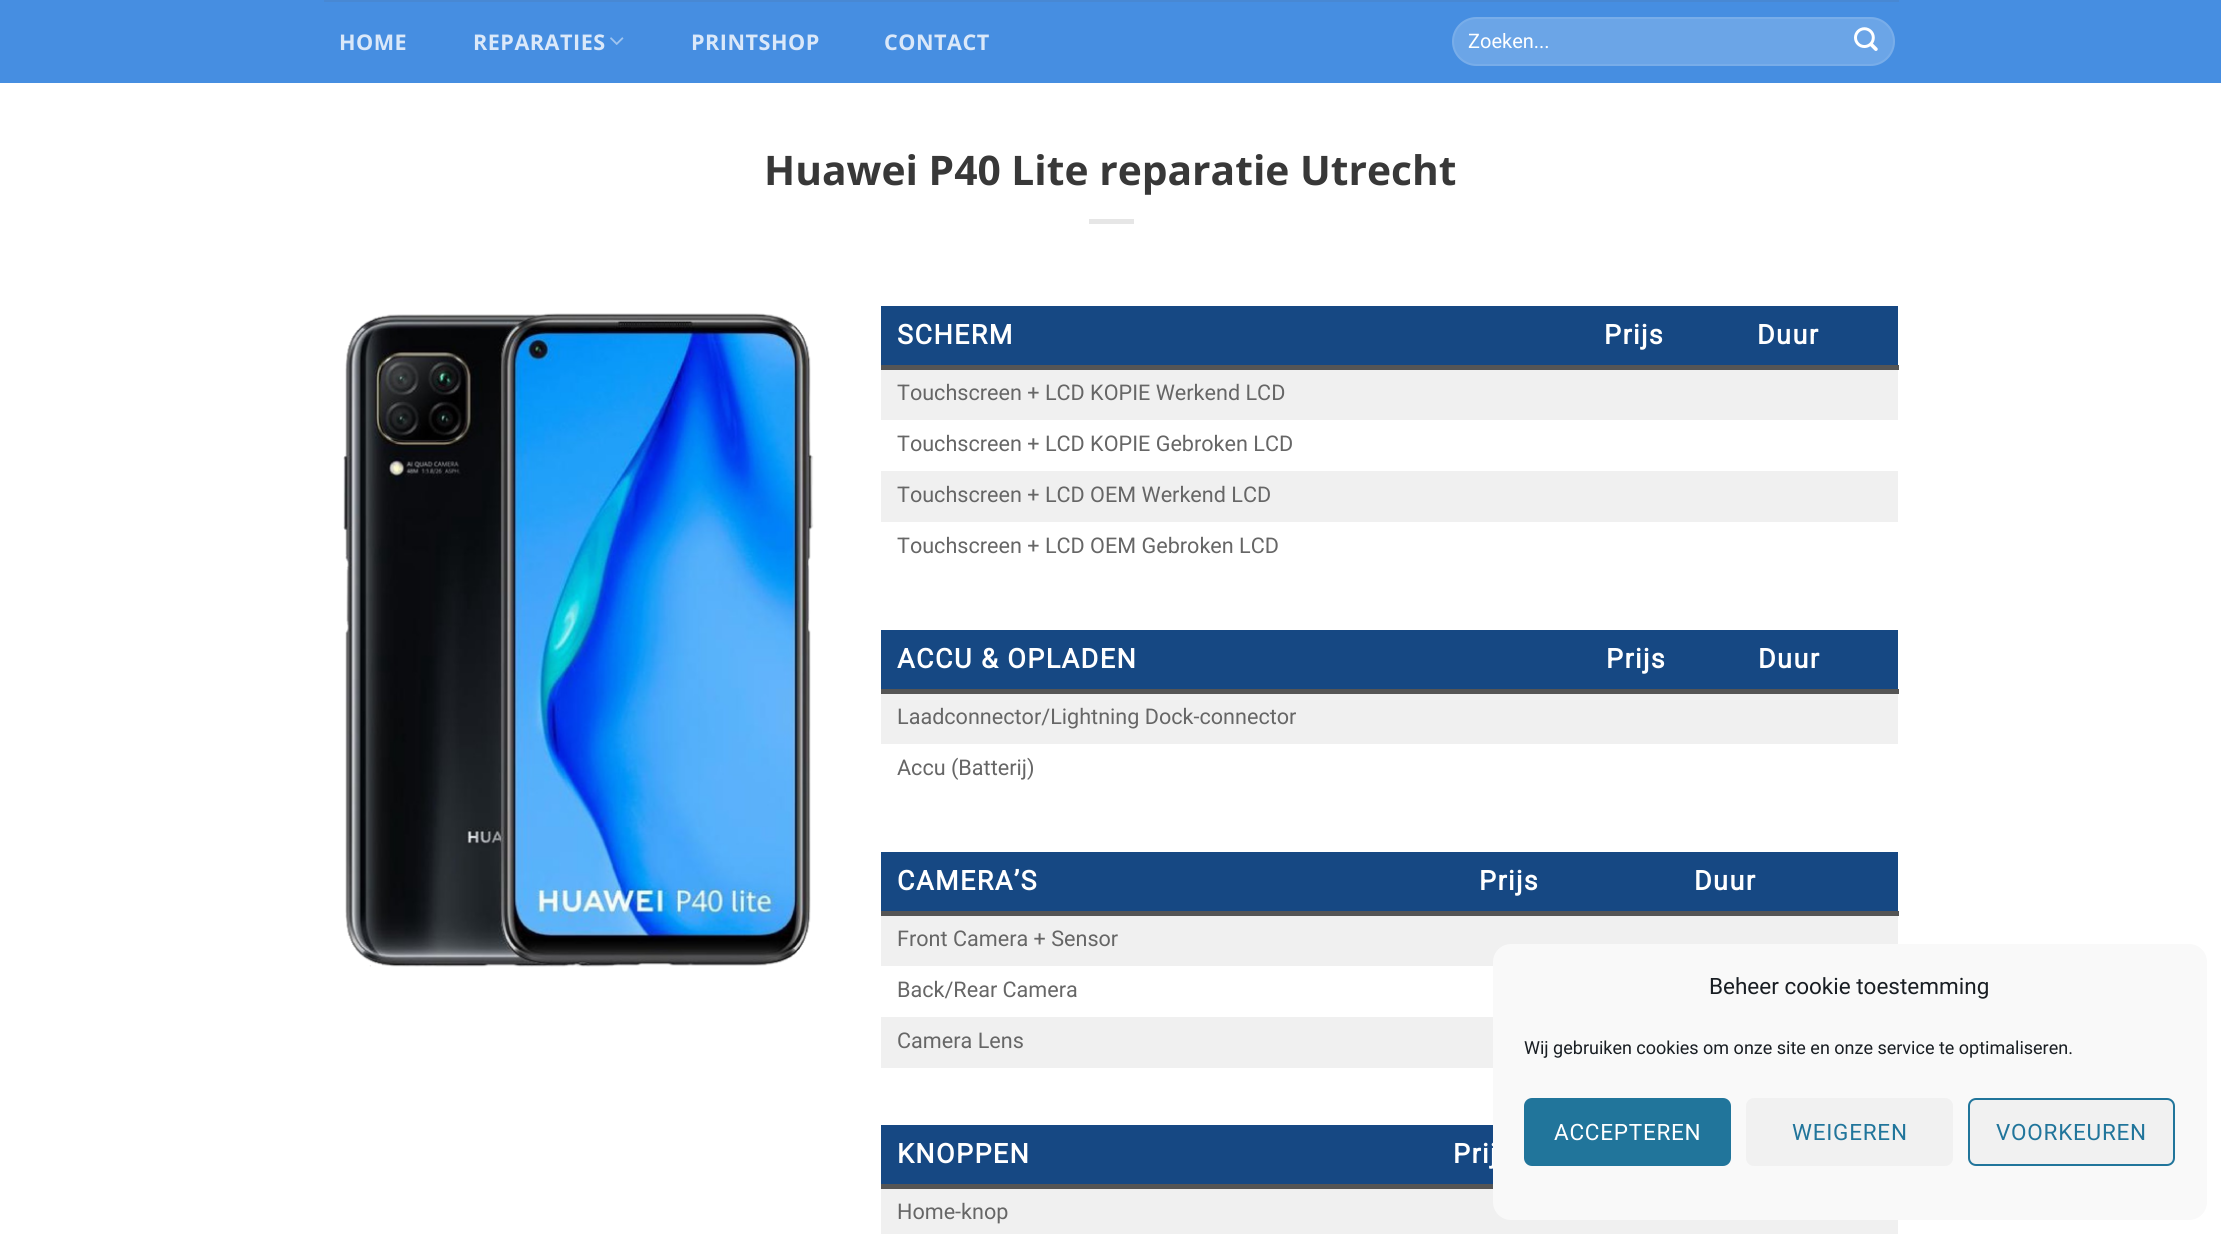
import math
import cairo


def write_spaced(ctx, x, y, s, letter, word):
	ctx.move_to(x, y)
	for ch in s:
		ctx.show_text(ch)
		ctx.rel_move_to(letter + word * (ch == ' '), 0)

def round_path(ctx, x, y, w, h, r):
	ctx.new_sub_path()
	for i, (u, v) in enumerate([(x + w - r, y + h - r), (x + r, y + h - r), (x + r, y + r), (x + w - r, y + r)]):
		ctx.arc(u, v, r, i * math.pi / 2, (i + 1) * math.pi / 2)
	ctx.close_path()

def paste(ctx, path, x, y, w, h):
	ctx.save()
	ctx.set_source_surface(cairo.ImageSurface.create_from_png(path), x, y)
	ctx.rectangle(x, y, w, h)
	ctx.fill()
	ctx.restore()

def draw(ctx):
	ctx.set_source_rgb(1, 1, 1)
	ctx.paint()
	ctx.set_source_rgb(0.275, 0.557, 0.882)
	ctx.rectangle(0, 0, 2221, 83)
	ctx.fill()
	ctx.set_source_rgb(0.282, 0.533, 0.827)
	ctx.rectangle(324, 0, 1575, 2)
	ctx.fill()
	ctx.select_font_face('Open Sans', cairo.FONT_SLANT_NORMAL, cairo.FONT_WEIGHT_BOLD)
	ctx.set_font_size(21.6)
	ctx.set_source_rgb(0.855, 0.91, 0.976)
	write_spaced(ctx, 339, 50, 'HOME', 0.5, 0)
	write_spaced(ctx, 473, 50, 'REPARATIES', 0.5, 0)
	paste(ctx, 'media/1.png', 610, 37, 14, 8)
	write_spaced(ctx, 691, 50, 'PRINTSHOP', 0.5, 0)
	write_spaced(ctx, 884, 50, 'CONTACT', 0.5, 0)
	ctx.set_source_rgb(0.42, 0.647, 0.906)
	round_path(ctx, 1452, 17, 443, 49, 24.5)
	ctx.fill()
	round_path(ctx, 1453, 18, 441, 47, 23.5)
	ctx.set_source_rgba(1, 1, 1, 0.09)
	ctx.stroke()
	ctx.select_font_face('Roboto')
	ctx.set_font_size(20)
	ctx.set_source_rgb(1, 1, 1)
	ctx.move_to(1468, 48)
	ctx.show_text('Zoeken...')
	paste(ctx, 'media/2.png', 1854, 27, 24, 24)
	ctx.select_font_face('Open Sans', cairo.FONT_SLANT_NORMAL, cairo.FONT_WEIGHT_BOLD)
	ctx.set_font_size(40.75)
	ctx.set_source_rgb(0.22, 0.22, 0.22)
	ctx.move_to(764, 185)
	ctx.show_text('Huawei P40 Lite reparatie Utrecht')
	ctx.set_source_rgb(0.902, 0.902, 0.902)
	ctx.rectangle(1089, 219, 45, 5)
	ctx.fill()
	paste(ctx, 'media/3.png', 343, 313, 471, 654)
	ctx.set_source_rgb(0.333, 0.333, 0.333)
	ctx.rectangle(881, 365, 1018, 5)
	ctx.fill()
	ctx.set_source_rgb(0.086, 0.282, 0.514)
	ctx.rectangle(881, 306, 1017, 59)
	ctx.fill()
	ctx.select_font_face('Roboto', cairo.FONT_SLANT_NORMAL, cairo.FONT_WEIGHT_BOLD)
	ctx.set_font_size(27)
	ctx.set_source_rgb(1, 1, 1)
	for x, y, s in [
		(897, 344, 'SCHERM'),
		(1604, 344, 'Prijs'),
		(1757, 344, 'Duur'),
	]:
		write_spaced(ctx, x, y, s, 1.4, 0)
	ctx.set_source_rgb(0.941, 0.941, 0.941)
	ctx.rectangle(881, 370, 1017, 50)
	ctx.fill()
	ctx.select_font_face('Roboto')
	ctx.set_font_size(21.6)
	ctx.set_source_rgb(0.4, 0.4, 0.4)
	ctx.move_to(897, 400)
	ctx.show_text('Touchscreen + LCD KOPIE Werkend LCD')
	ctx.move_to(897, 451)
	ctx.show_text('Touchscreen + LCD KOPIE Gebroken LCD')
	ctx.set_source_rgb(0.941, 0.941, 0.941)
	ctx.rectangle(881, 471, 1017, 51)
	ctx.fill()
	ctx.set_source_rgb(0.4, 0.4, 0.4)
	ctx.move_to(897, 502)
	ctx.show_text('Touchscreen + LCD OEM Werkend LCD')
	ctx.move_to(897, 553)
	ctx.show_text('Touchscreen + LCD OEM Gebroken LCD')
	ctx.set_source_rgb(0.333, 0.333, 0.333)
	ctx.rectangle(881, 689, 1018, 5)
	ctx.fill()
	ctx.set_source_rgb(0.086, 0.282, 0.514)
	ctx.rectangle(881, 630, 1017, 59)
	ctx.fill()
	ctx.select_font_face('Roboto', cairo.FONT_SLANT_NORMAL, cairo.FONT_WEIGHT_BOLD)
	ctx.set_font_size(27)
	ctx.set_source_rgb(1, 1, 1)
	for x, y, s in [
		(897, 668, 'ACCU & OPLADEN'),
		(1606, 668, 'Prijs'),
		(1758, 668, 'Duur'),
	]:
		write_spaced(ctx, x, y, s, 1.4, 0)
	ctx.set_source_rgb(0.941, 0.941, 0.941)
	ctx.rectangle(881, 694, 1017, 50)
	ctx.fill()
	ctx.select_font_face('Roboto')
	ctx.set_font_size(21.6)
	ctx.set_source_rgb(0.4, 0.4, 0.4)
	ctx.move_to(897, 724)
	ctx.show_text('Laadconnector/Lightning Dock-connector')
	ctx.move_to(897, 775)
	ctx.show_text('Accu (Batterij)')
	ctx.set_source_rgb(0.333, 0.333, 0.333)
	ctx.rectangle(881, 911, 1018, 5)
	ctx.fill()
	ctx.set_source_rgb(0.086, 0.282, 0.514)
	ctx.rectangle(881, 852, 1017, 59)
	ctx.fill()
	ctx.select_font_face('Roboto', cairo.FONT_SLANT_NORMAL, cairo.FONT_WEIGHT_BOLD)
	ctx.set_font_size(27)
	ctx.set_source_rgb(1, 1, 1)
	for x, y, s in [
		(897, 890, 'CAMERA’S'),
		(1479, 890, 'Prijs'),
		(1694, 890, 'Duur'),
	]:
		write_spaced(ctx, x, y, s, 1.4, 0)
	ctx.set_source_rgb(0.941, 0.941, 0.941)
	ctx.rectangle(881, 916, 1017, 50)
	ctx.fill()
	ctx.select_font_face('Roboto')
	ctx.set_font_size(21.6)
	ctx.set_source_rgb(0.4, 0.4, 0.4)
	ctx.move_to(897, 946)
	ctx.show_text('Front Camera + Sensor')
	ctx.move_to(897, 997)
	ctx.show_text('Back/Rear Camera')
	ctx.set_source_rgb(0.941, 0.941, 0.941)
	ctx.rectangle(881, 1017, 612, 51)
	ctx.fill()
	ctx.set_source_rgb(0.4, 0.4, 0.4)
	ctx.move_to(897, 1048)
	ctx.show_text('Camera Lens')
	ctx.set_source_rgb(0.333, 0.333, 0.333)
	ctx.rectangle(881, 1184, 612, 5)
	ctx.fill()
	ctx.set_source_rgb(0.086, 0.282, 0.514)
	ctx.rectangle(881, 1125, 612, 59)
	ctx.fill()
	ctx.select_font_face('Roboto', cairo.FONT_SLANT_NORMAL, cairo.FONT_WEIGHT_BOLD)
	ctx.set_font_size(27)
	ctx.set_source_rgb(1, 1, 1)
	write_spaced(ctx, 897, 1163, 'KNOPPEN', 1.4, 0)
	write_spaced(ctx, 1453, 1163, 'Prij', 1.4, 0)
	ctx.set_source_rgb(0.941, 0.941, 0.941)
	ctx.rectangle(881, 1189, 1017, 45)
	ctx.fill()
	ctx.select_font_face('Roboto')
	ctx.set_font_size(21.6)
	ctx.set_source_rgb(0.4, 0.4, 0.4)
	ctx.move_to(897, 1219)
	ctx.show_text('Home-knop')
	ctx.set_source_rgb(0.976, 0.976, 0.976)
	round_path(ctx, 1493, 944, 714, 276, 18)
	ctx.fill()
	ctx.set_font_size(22.5)
	ctx.set_source_rgb(0.098, 0.118, 0.137)
	ctx.move_to(1709, 994)
	ctx.show_text('Beheer cookie toestemming')
	ctx.set_font_size(18)
	ctx.move_to(1524, 1054)
	ctx.show_text('Wij gebruiken cookies om onze site en onze service te optimaliseren.')
	ctx.set_source_rgb(0.129, 0.459, 0.608)
	round_path(ctx, 1525, 1099, 205, 66, 7)
	ctx.fill_preserve()
	ctx.stroke()
	ctx.set_font_size(22.5)
	ctx.set_source_rgb(1, 1, 1)
	write_spaced(ctx, 1554, 1140, 'ACCEPTEREN', 0.75, 0)
	ctx.set_source_rgb(0.945, 0.945, 0.945)
	round_path(ctx, 1746, 1098, 207, 68, 8)
	ctx.fill()
	ctx.set_source_rgb(0.129, 0.459, 0.608)
	write_spaced(ctx, 1792, 1140, 'WEIGEREN', 0.75, 0)
	ctx.set_source_rgb(0.945, 0.945, 0.945)
	round_path(ctx, 1969, 1099, 205, 66, 7)
	ctx.fill_preserve()
	ctx.set_source_rgb(0.129, 0.459, 0.608)
	ctx.stroke()
	write_spaced(ctx, 1996, 1140, 'VOORKEUREN', 0.75, 0)


surface = cairo.ImageSurface(cairo.FORMAT_RGB24, 2221, 1234)
ctx = cairo.Context(surface)
options = cairo.FontOptions()
options.set_hint_metrics(cairo.HINT_METRICS_OFF)
options.set_hint_style(cairo.HINT_STYLE_NONE)
ctx.set_font_options(options)
ctx.set_miter_limit(4)
draw(ctx)
surface.write_to_png('image.png')
